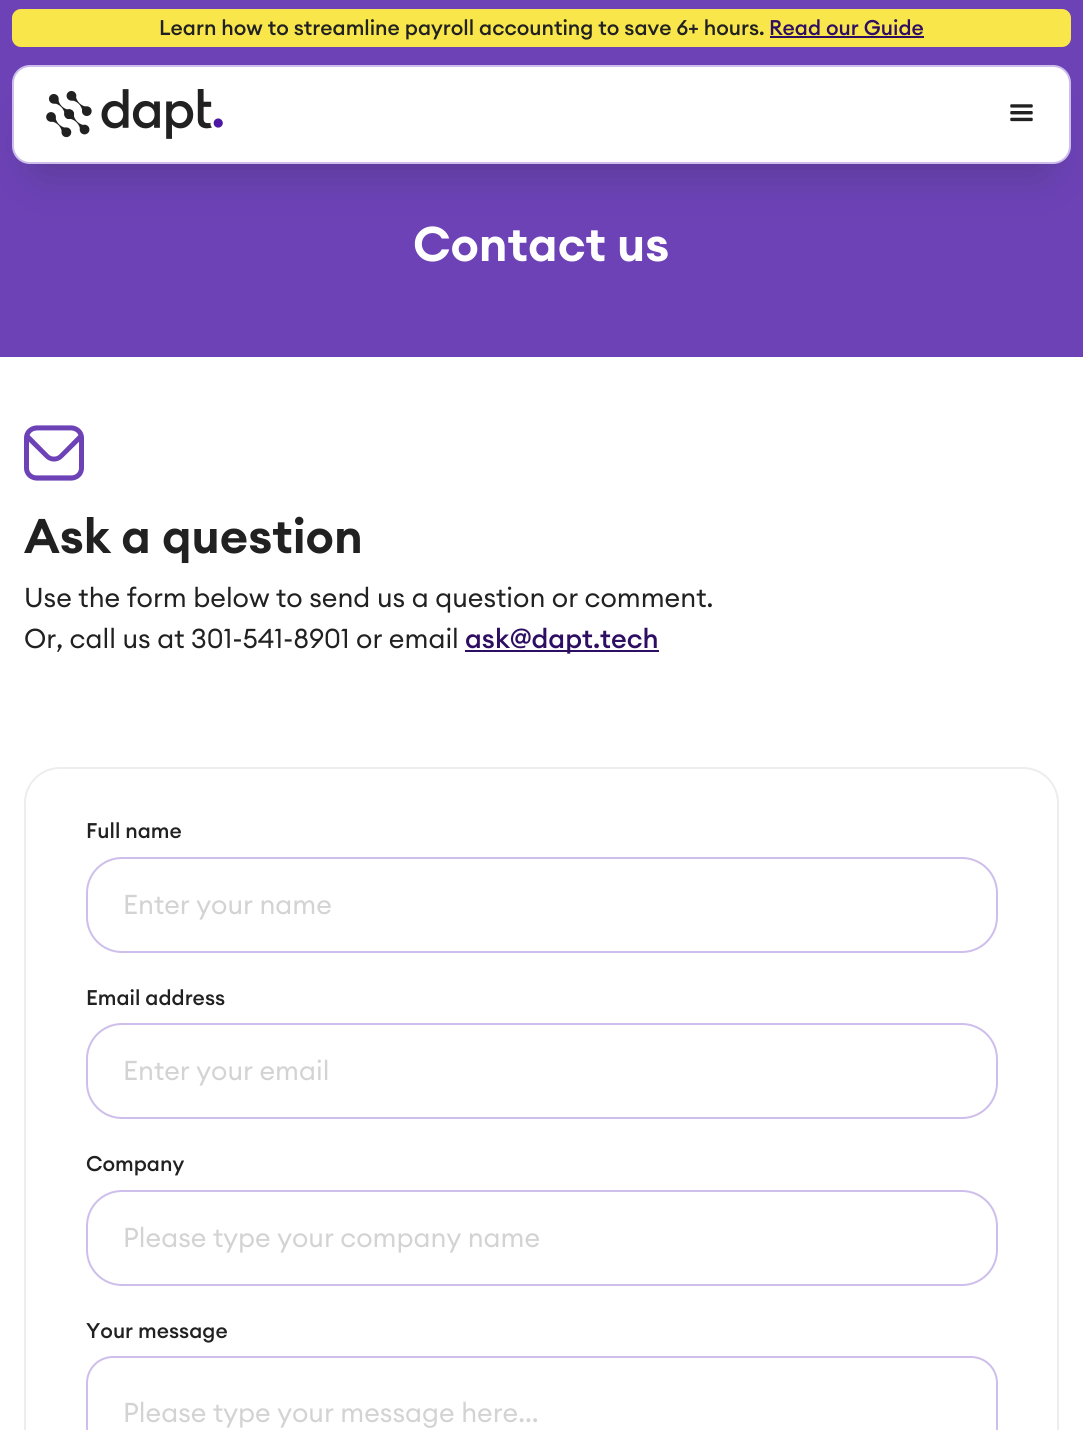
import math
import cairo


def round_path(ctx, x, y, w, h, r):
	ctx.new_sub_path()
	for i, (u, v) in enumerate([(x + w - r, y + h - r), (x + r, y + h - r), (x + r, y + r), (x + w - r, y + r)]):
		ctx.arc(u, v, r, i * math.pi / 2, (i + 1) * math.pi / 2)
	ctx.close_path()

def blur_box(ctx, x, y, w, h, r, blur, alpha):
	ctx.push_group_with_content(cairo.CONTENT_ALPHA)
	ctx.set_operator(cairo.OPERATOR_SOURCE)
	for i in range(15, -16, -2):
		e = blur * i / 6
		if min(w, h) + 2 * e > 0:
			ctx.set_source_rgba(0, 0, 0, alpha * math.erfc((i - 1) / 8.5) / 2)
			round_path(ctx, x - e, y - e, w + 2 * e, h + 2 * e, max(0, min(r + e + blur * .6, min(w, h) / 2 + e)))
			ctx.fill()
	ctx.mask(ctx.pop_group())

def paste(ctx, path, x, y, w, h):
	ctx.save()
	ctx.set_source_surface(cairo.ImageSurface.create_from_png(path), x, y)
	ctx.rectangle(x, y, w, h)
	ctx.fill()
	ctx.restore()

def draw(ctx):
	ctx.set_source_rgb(1, 1, 1)
	ctx.paint()
	ctx.set_source_rgb(0.427, 0.259, 0.714)
	ctx.rectangle(0, 0, 1083, 357)
	ctx.fill()
	ctx.set_source_rgb(0.969, 0.902, 0.294)
	round_path(ctx, 12, 9, 1059, 38, 9)
	ctx.fill()
	ctx.select_font_face('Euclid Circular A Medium')
	ctx.set_font_size(21)
	ctx.set_source_rgb(0.129, 0.129, 0.129)
	ctx.move_to(159, 35)
	ctx.show_text('Learn how to streamline payroll accounting to save 6+ hours.')
	ctx.set_source_rgb(0.18, 0.055, 0.384)
	ctx.move_to(769, 35)
	ctx.show_text('Read our Guide')
	ctx.rectangle(770, 36, 154, 2)
	ctx.fill()
	ctx.set_source_rgb(0.216, 0.188, 0.353)
	blur_box(ctx, 42, 126, 999, 39, 0, 24, 0.5)
	ctx.set_source_rgb(1, 1, 1)
	round_path(ctx, 13, 66, 1057, 97, 17)
	ctx.fill_preserve()
	ctx.set_source_rgb(0.808, 0.745, 0.918)
	ctx.stroke()
	paste(ctx, 'media/1.png', 46, 89, 177, 50)
	paste(ctx, 'media/2.png', 1010, 104, 23, 18)
	ctx.select_font_face('Euclid Circular A SemiBold')
	ctx.set_font_size(48)
	ctx.set_source_rgb(1, 1, 1)
	ctx.move_to(413, 261)
	ctx.show_text('Contact us')
	paste(ctx, 'media/3.png', 24, 425, 60, 56)
	ctx.set_source_rgb(0.129, 0.129, 0.129)
	ctx.move_to(24, 553)
	ctx.show_text('Ask a question')
	ctx.select_font_face('Euclid Circular A')
	ctx.set_font_size(27)
	ctx.move_to(24, 607)
	ctx.show_text('Use the form below to send us a question or comment.')
	ctx.move_to(24, 648)
	ctx.show_text('Or, call us at 301-541-8901 or email')
	ctx.set_source_rgb(0.18, 0.055, 0.384)
	ctx.rectangle(465, 650, 194, 2)
	ctx.fill()
	ctx.select_font_face('Euclid Circular A Medium')
	ctx.move_to(465, 648)
	ctx.show_text('ask@dapt.tech')
	round_path(ctx, 25, 768, 1033, 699, 35)
	ctx.set_source_rgb(0.929, 0.929, 0.929)
	ctx.stroke()
	ctx.set_font_size(21)
	ctx.set_source_rgb(0.129, 0.129, 0.129)
	ctx.move_to(86, 838)
	ctx.show_text('Full name')
	round_path(ctx, 87, 858, 910, 94, 35)
	ctx.set_source_rgb(0.808, 0.745, 0.918)
	ctx.stroke()
	ctx.select_font_face('Euclid Circular A')
	ctx.set_font_size(27)
	ctx.set_source_rgb(0.827, 0.827, 0.827)
	ctx.move_to(123, 914)
	ctx.show_text('Enter your name')
	ctx.select_font_face('Euclid Circular A Medium')
	ctx.set_font_size(21)
	ctx.set_source_rgb(0.129, 0.129, 0.129)
	ctx.move_to(86, 1005)
	ctx.show_text('Email address')
	round_path(ctx, 87, 1024, 910, 94, 35)
	ctx.set_source_rgb(0.808, 0.745, 0.918)
	ctx.stroke()
	ctx.select_font_face('Euclid Circular A')
	ctx.set_font_size(27)
	ctx.set_source_rgb(0.827, 0.827, 0.827)
	ctx.move_to(123, 1080)
	ctx.show_text('Enter your email')
	ctx.select_font_face('Euclid Circular A Medium')
	ctx.set_font_size(21)
	ctx.set_source_rgb(0.129, 0.129, 0.129)
	ctx.move_to(86, 1171)
	ctx.show_text('Company')
	round_path(ctx, 87, 1191, 910, 94, 35)
	ctx.set_source_rgb(0.808, 0.745, 0.918)
	ctx.stroke()
	ctx.select_font_face('Euclid Circular A')
	ctx.set_font_size(27)
	ctx.set_source_rgb(0.827, 0.827, 0.827)
	ctx.move_to(123, 1247)
	ctx.show_text('Please type your company name')
	ctx.select_font_face('Euclid Circular A Medium')
	ctx.set_font_size(21)
	ctx.set_source_rgb(0.129, 0.129, 0.129)
	ctx.move_to(86, 1338)
	ctx.show_text('Your message')
	round_path(ctx, 87, 1357, 910, 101, 26)
	ctx.set_source_rgb(0.808, 0.745, 0.918)
	ctx.stroke()
	ctx.select_font_face('Euclid Circular A')
	ctx.set_font_size(27)
	ctx.set_source_rgb(0.827, 0.827, 0.827)
	ctx.move_to(123, 1422)
	ctx.show_text('Please type your message here...')


surface = cairo.ImageSurface(cairo.FORMAT_RGB24, 1083, 1430)
ctx = cairo.Context(surface)
options = cairo.FontOptions()
options.set_hint_metrics(cairo.HINT_METRICS_OFF)
options.set_hint_style(cairo.HINT_STYLE_NONE)
ctx.set_font_options(options)
ctx.set_miter_limit(4)
draw(ctx)
surface.write_to_png('image.png')
